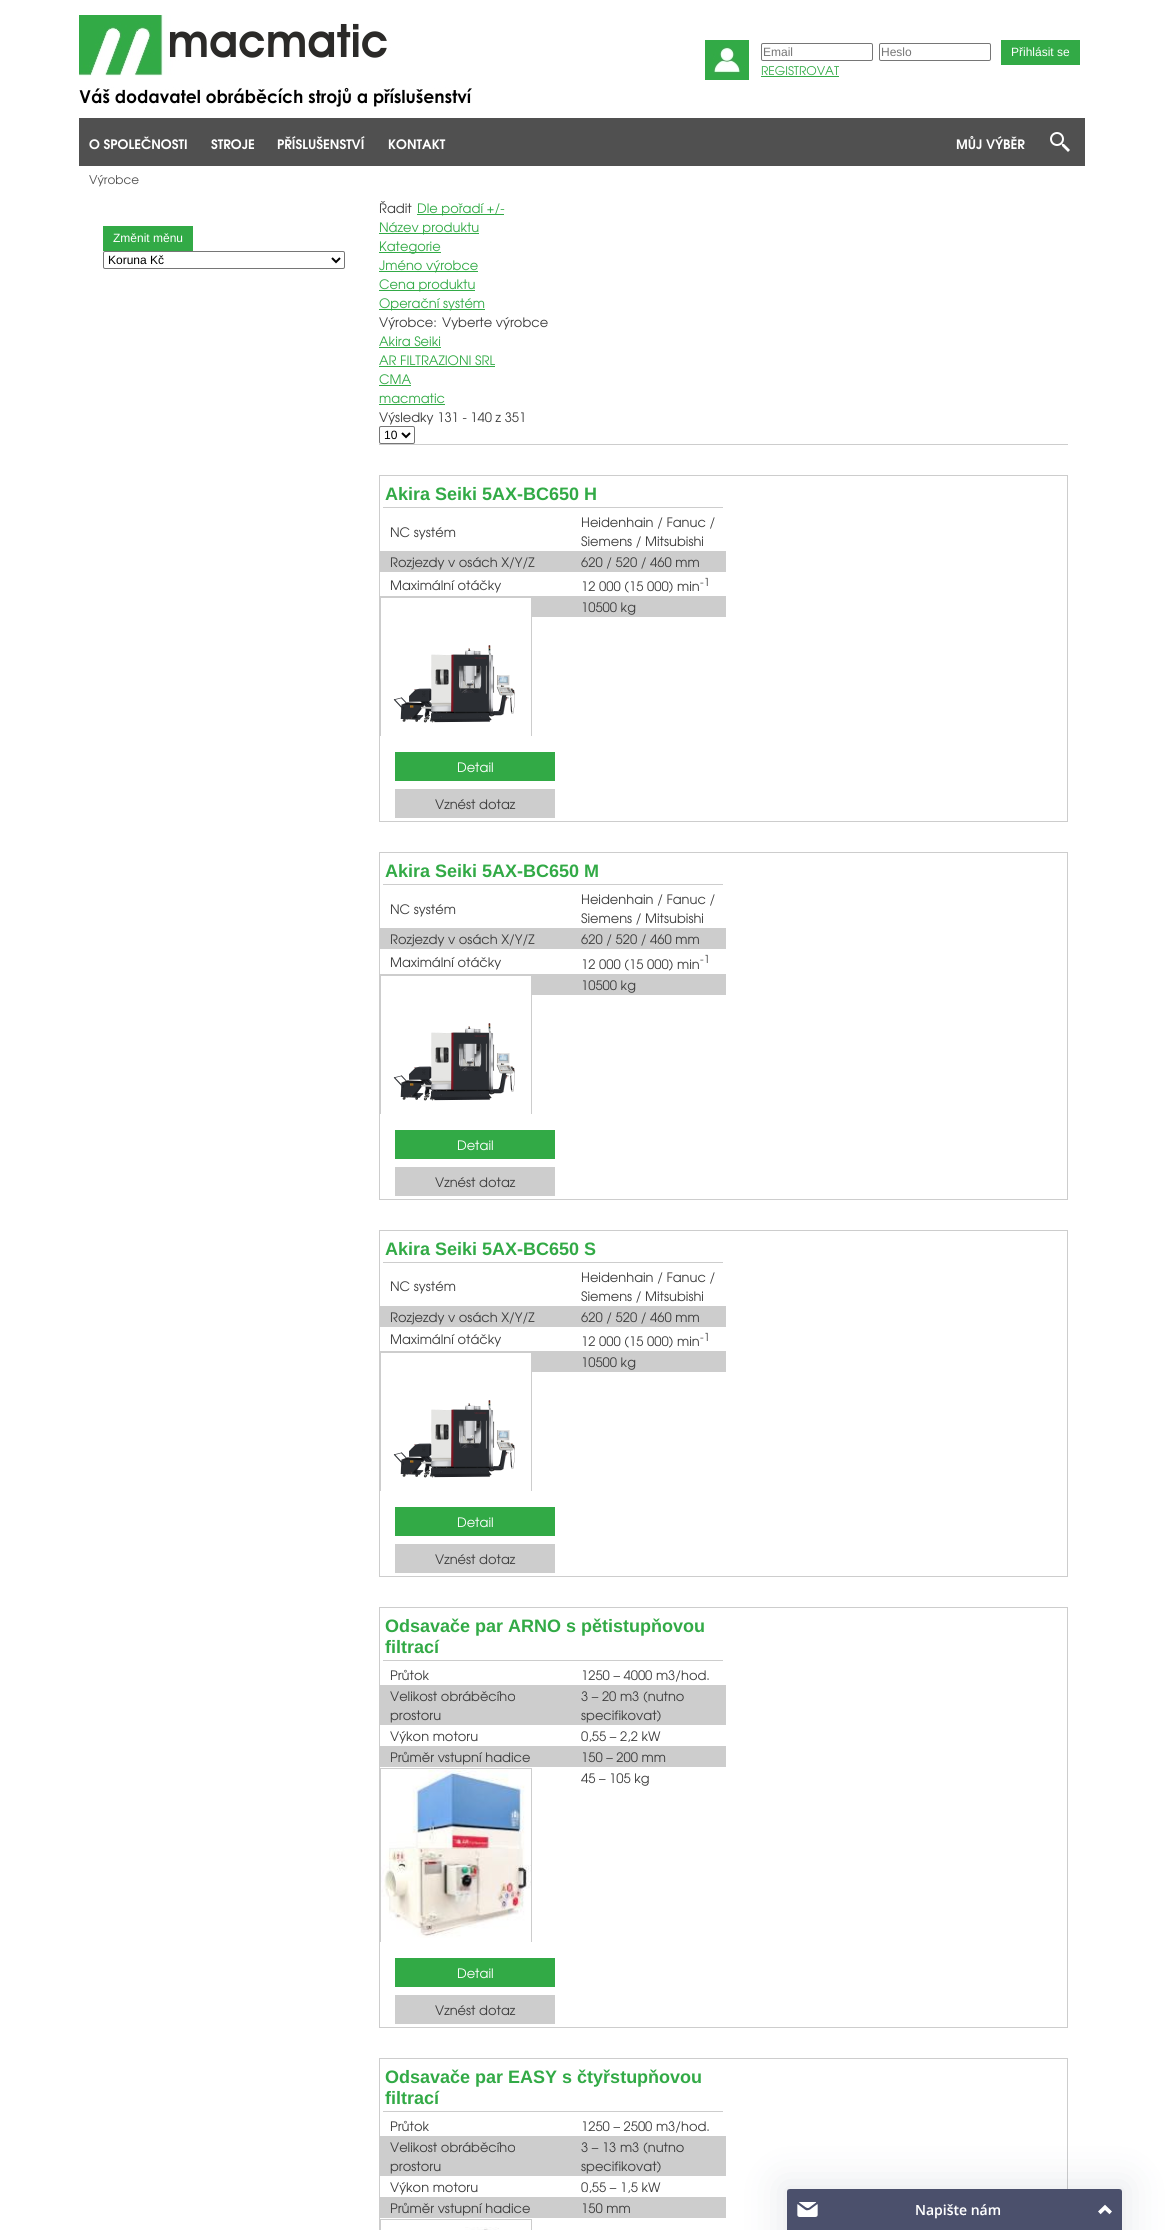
import math
import cairo


def round_path(ctx, x, y, w, h, r):
	ctx.new_sub_path()
	for i, (u, v) in enumerate([(x + w - r, y + h - r), (x + r, y + h - r), (x + r, y + r), (x + w - r, y + r)]):
		ctx.arc(u, v, r, i * math.pi / 2, (i + 1) * math.pi / 2)
	ctx.close_path()

def blur_box(ctx, x, y, w, h, r, blur, alpha):
	ctx.push_group_with_content(cairo.CONTENT_ALPHA)
	ctx.set_operator(cairo.OPERATOR_SOURCE)
	for i in range(15, -16, -2):
		e = blur * i / 6
		if min(w, h) + 2 * e > 0:
			ctx.set_source_rgba(0, 0, 0, alpha * math.erfc((i - 1) / 8.5) / 2)
			round_path(ctx, x - e, y - e, w + 2 * e, h + 2 * e, max(0, min(r + e + blur * .6, min(w, h) / 2 + e)))
			ctx.fill()
	ctx.mask(ctx.pop_group())

def paste(ctx, path, x, y, w, h):
	ctx.save()
	ctx.set_source_surface(cairo.ImageSurface.create_from_png(path), x, y)
	ctx.rectangle(x, y, w, h)
	ctx.fill()
	ctx.restore()

def draw(ctx):
	ctx.set_source_rgb(1, 1, 1)
	ctx.paint()
	paste(ctx, 'media/1.png', 79, 15, 393, 92)
	paste(ctx, 'media/2.png', 705, 40, 44, 40)
	round_path(ctx, 761.5, 43.5, 111, 17, 1.5)
	ctx.set_source_rgb(0.463, 0.463, 0.463)
	ctx.set_line_width(1)
	ctx.stroke()
	ctx.select_font_face('Liberation Sans')
	ctx.set_font_size(12)
	ctx.set_source_rgb(0.459, 0.459, 0.459)
	ctx.move_to(763, 56)
	ctx.show_text('Email')
	round_path(ctx, 879.5, 43.5, 111, 17, 1.5)
	ctx.set_source_rgb(0.463, 0.463, 0.463)
	ctx.stroke()
	ctx.set_source_rgb(0.459, 0.459, 0.459)
	ctx.move_to(881, 56)
	ctx.show_text('Heslo')
	ctx.set_source_rgb(0.196, 0.667, 0.275)
	ctx.rectangle(1001, 40, 79, 25)
	ctx.fill()
	ctx.set_source_rgb(1, 1, 1)
	ctx.move_to(1011, 56)
	ctx.show_text('Přihlásit se')
	ctx.select_font_face('TeX Gyre Adventor')
	ctx.set_source_rgb(0.196, 0.667, 0.275)
	ctx.move_to(761, 75)
	ctx.show_text('REGISTROVAT')
	ctx.rectangle(761, 76, 78, 1)
	ctx.fill()
	ctx.set_source_rgb(0.314, 0.314, 0.314)
	ctx.rectangle(79, 118, 1006, 48)
	ctx.fill()
	ctx.select_font_face('TeX Gyre Adventor', cairo.FONT_SLANT_NORMAL, cairo.FONT_WEIGHT_BOLD)
	ctx.set_font_size(13)
	ctx.set_source_rgb(1, 1, 1)
	for x, y, s in [
		(89, 149, 'O SPOLEČNOSTI'),
		(211, 149, 'STROJE'),
		(277, 149, 'PŘÍSLUŠENSTVÍ'),
		(388, 149, 'KONTAKT'),
		(956, 149, 'MŮJ VÝBĚR'),
	]:
		ctx.move_to(x, y)
		ctx.show_text(s)
	paste(ctx, 'media/3.png', 1050, 132, 20, 20)
	ctx.select_font_face('TeX Gyre Adventor')
	ctx.set_font_size(12)
	ctx.set_source_rgb(0.314, 0.314, 0.314)
	ctx.move_to(89, 184)
	ctx.show_text('Výrobce')
	ctx.set_source_rgb(0.196, 0.667, 0.275)
	ctx.rectangle(103, 226, 90, 25)
	ctx.fill()
	ctx.select_font_face('Liberation Sans')
	ctx.set_source_rgb(1, 1, 1)
	ctx.move_to(113, 242)
	ctx.show_text('Změnit měnu')
	round_path(ctx, 103.5, 251.5, 241, 17, 1.5)
	ctx.set_source_rgb(0.463, 0.463, 0.463)
	ctx.stroke()
	ctx.new_path()
	ctx.move_to(332, 258)
	ctx.line_to(336, 262)
	ctx.line_to(340, 258)
	ctx.set_source_rgb(0, 0, 0)
	ctx.set_line_width(2)
	ctx.stroke()
	ctx.move_to(108, 264)
	ctx.show_text('Koruna Kč')
	ctx.set_source_rgb(0.804, 0.804, 0.804)
	ctx.rectangle(379, 444, 689, 1)
	ctx.fill()
	ctx.select_font_face('TeX Gyre Adventor')
	ctx.set_font_size(13)
	ctx.set_source_rgb(0.239, 0.239, 0.239)
	ctx.move_to(379, 213)
	ctx.show_text('Řadit')
	ctx.set_source_rgb(0.196, 0.667, 0.275)
	ctx.rectangle(417, 214, 87, 1)
	ctx.fill()
	ctx.move_to(417, 213)
	ctx.show_text('Dle pořadí +/-')
	ctx.rectangle(379, 233, 100, 1)
	ctx.fill()
	ctx.move_to(379, 232)
	ctx.show_text('Název produktu')
	ctx.rectangle(379, 252, 62, 1)
	ctx.fill()
	ctx.move_to(379, 251)
	ctx.show_text('Kategorie')
	ctx.rectangle(379, 271, 99, 1)
	ctx.fill()
	ctx.move_to(379, 270)
	ctx.show_text('Jméno výrobce')
	ctx.rectangle(379, 290, 96, 1)
	ctx.fill()
	ctx.move_to(379, 289)
	ctx.show_text('Cena produktu')
	ctx.rectangle(379, 309, 106, 1)
	ctx.fill()
	ctx.move_to(379, 308)
	ctx.show_text('Operační systém')
	ctx.set_source_rgb(0.239, 0.239, 0.239)
	ctx.move_to(379, 327)
	ctx.show_text('Výrobce:')
	ctx.move_to(442, 327)
	ctx.show_text('Vyberte výrobce')
	ctx.set_source_rgb(0.196, 0.667, 0.275)
	ctx.move_to(379, 346)
	ctx.show_text('Akira Seiki')
	ctx.rectangle(379, 347, 62, 1)
	ctx.fill()
	ctx.move_to(379, 365)
	ctx.show_text('AR FILTRAZIONI SRL')
	ctx.rectangle(379, 366, 116, 1)
	ctx.fill()
	ctx.move_to(379, 384)
	ctx.show_text('CMA')
	ctx.rectangle(379, 385, 32, 1)
	ctx.fill()
	ctx.move_to(379, 403)
	ctx.show_text('macmatic')
	ctx.rectangle(379, 404, 66, 1)
	ctx.fill()
	ctx.set_source_rgb(0.239, 0.239, 0.239)
	ctx.move_to(379, 422)
	ctx.show_text('Výsledky 131 - 140 z 351')
	round_path(ctx, 379.5, 426.5, 35, 17, 1.5)
	ctx.set_source_rgb(0.463, 0.463, 0.463)
	ctx.set_line_width(1)
	ctx.stroke()
	ctx.new_path()
	ctx.move_to(402, 433)
	ctx.line_to(406, 437)
	ctx.line_to(410, 433)
	ctx.set_source_rgb(0, 0, 0)
	ctx.set_line_width(2)
	ctx.stroke()
	ctx.select_font_face('Liberation Sans')
	ctx.set_font_size(12)
	ctx.move_to(384, 439)
	ctx.show_text('10')
	ctx.rectangle(379.5, 475.5, 688, 346)
	ctx.set_source_rgb(0.804, 0.804, 0.804)
	ctx.set_line_width(1)
	ctx.stroke()
	ctx.rectangle(383, 507, 340, 1)
	ctx.fill()
	ctx.select_font_face('Liberation Sans', cairo.FONT_SLANT_NORMAL, cairo.FONT_WEIGHT_BOLD)
	ctx.set_font_size(18)
	ctx.set_source_rgb(0.196, 0.667, 0.275)
	ctx.move_to(385, 500)
	ctx.show_text('Akira Seiki 5AX-BC650 H')
	ctx.select_font_face('TeX Gyre Adventor')
	ctx.set_font_size(13)
	ctx.set_source_rgb(0.239, 0.239, 0.239)
	for x, y, s in [
		(390, 537, 'NC systém'),
		(581, 527, 'Heidenhain / Fanuc /'),
		(581, 546, 'Siemens / Mitsubishi'),
	]:
		ctx.move_to(x, y)
		ctx.show_text(s)
	ctx.set_source_rgb(0.804, 0.804, 0.804)
	ctx.rectangle(380, 551, 346, 21)
	ctx.fill()
	ctx.set_source_rgb(0.239, 0.239, 0.239)
	for x, y, s in [
		(390, 567, 'Rozjezdy v osách X/Y/Z'),
		(581, 567, '620 / 520 / 460 mm'),
		(390, 590, 'Maximální otáčky'),
		(581, 591, '12 000 (15 000) min'),
	]:
		ctx.move_to(x, y)
		ctx.show_text(s)
	ctx.set_font_size(11)
	ctx.move_to(700, 586)
	ctx.show_text('-1')
	ctx.set_source_rgb(0.804, 0.804, 0.804)
	ctx.rectangle(380, 596, 346, 21)
	ctx.fill()
	ctx.set_font_size(13)
	ctx.set_source_rgb(0.239, 0.239, 0.239)
	ctx.move_to(581, 612)
	ctx.show_text('10500 kg')
	ctx.set_source_rgb(1, 1, 1)
	ctx.rectangle(381, 598, 150, 19)
	ctx.fill()
	ctx.set_source_rgb(0.804, 0.804, 0.804)
	ctx.rectangle(531, 617, 1, 119)
	ctx.rectangle(380, 617, 1, 119)
	ctx.fill()
	paste(ctx, 'media/4.png', 393, 645, 122, 78)
	ctx.set_source_rgb(0.196, 0.667, 0.275)
	ctx.rectangle(395, 752, 160, 29)
	ctx.fill()
	ctx.set_source_rgb(1, 1, 1)
	ctx.move_to(457, 772)
	ctx.show_text('Detail')
	ctx.set_source_rgb(0.804, 0.804, 0.804)
	ctx.rectangle(395, 789, 160, 29)
	ctx.fill()
	ctx.set_source_rgb(0.239, 0.239, 0.239)
	ctx.move_to(435, 809)
	ctx.show_text('Vznést dotaz')
	ctx.rectangle(379.5, 852.5, 688, 347)
	ctx.set_source_rgb(0.804, 0.804, 0.804)
	ctx.stroke()
	ctx.rectangle(383, 884, 340, 1)
	ctx.fill()
	ctx.select_font_face('Liberation Sans', cairo.FONT_SLANT_NORMAL, cairo.FONT_WEIGHT_BOLD)
	ctx.set_font_size(18)
	ctx.set_source_rgb(0.196, 0.667, 0.275)
	ctx.move_to(385, 877)
	ctx.show_text('Akira Seiki 5AX-BC650 M')
	ctx.select_font_face('TeX Gyre Adventor')
	ctx.set_font_size(13)
	ctx.set_source_rgb(0.239, 0.239, 0.239)
	for x, y, s in [
		(390, 914, 'NC systém'),
		(581, 904, 'Heidenhain / Fanuc /'),
		(581, 923, 'Siemens / Mitsubishi'),
	]:
		ctx.move_to(x, y)
		ctx.show_text(s)
	ctx.set_source_rgb(0.804, 0.804, 0.804)
	ctx.rectangle(380, 928, 346, 21)
	ctx.fill()
	ctx.set_source_rgb(0.239, 0.239, 0.239)
	for x, y, s in [
		(390, 944, 'Rozjezdy v osách X/Y/Z'),
		(581, 944, '620 / 520 / 460 mm'),
		(390, 967, 'Maximální otáčky'),
		(581, 969, '12 000 (15 000) min'),
	]:
		ctx.move_to(x, y)
		ctx.show_text(s)
	ctx.set_font_size(11)
	ctx.move_to(700, 963)
	ctx.show_text('-1')
	ctx.set_source_rgb(0.804, 0.804, 0.804)
	ctx.rectangle(380, 974, 346, 21)
	ctx.fill()
	ctx.set_font_size(13)
	ctx.set_source_rgb(0.239, 0.239, 0.239)
	ctx.move_to(581, 990)
	ctx.show_text('10500 kg')
	ctx.set_source_rgb(1, 1, 1)
	ctx.rectangle(381, 976, 150, 19)
	ctx.fill()
	ctx.set_source_rgb(0.804, 0.804, 0.804)
	ctx.rectangle(531, 995, 1, 119)
	ctx.rectangle(380, 995, 1, 119)
	ctx.fill()
	paste(ctx, 'media/4.png', 393, 1023, 122, 78)
	ctx.set_source_rgb(0.196, 0.667, 0.275)
	ctx.rectangle(395, 1130, 160, 29)
	ctx.fill()
	ctx.set_source_rgb(1, 1, 1)
	ctx.move_to(457, 1150)
	ctx.show_text('Detail')
	ctx.set_source_rgb(0.804, 0.804, 0.804)
	ctx.rectangle(395, 1167, 160, 29)
	ctx.fill()
	ctx.set_source_rgb(0.239, 0.239, 0.239)
	ctx.move_to(435, 1187)
	ctx.show_text('Vznést dotaz')
	ctx.rectangle(379.5, 1230.5, 688, 346)
	ctx.set_source_rgb(0.804, 0.804, 0.804)
	ctx.stroke()
	ctx.rectangle(383, 1262, 340, 1)
	ctx.fill()
	ctx.select_font_face('Liberation Sans', cairo.FONT_SLANT_NORMAL, cairo.FONT_WEIGHT_BOLD)
	ctx.set_font_size(18)
	ctx.set_source_rgb(0.196, 0.667, 0.275)
	ctx.move_to(385, 1255)
	ctx.show_text('Akira Seiki 5AX-BC650 S')
	ctx.select_font_face('TeX Gyre Adventor')
	ctx.set_font_size(13)
	ctx.set_source_rgb(0.239, 0.239, 0.239)
	for x, y, s in [
		(390, 1291, 'NC systém'),
		(581, 1282, 'Heidenhain / Fanuc /'),
		(581, 1301, 'Siemens / Mitsubishi'),
	]:
		ctx.move_to(x, y)
		ctx.show_text(s)
	ctx.set_source_rgb(0.804, 0.804, 0.804)
	ctx.rectangle(380, 1306, 346, 21)
	ctx.fill()
	ctx.set_source_rgb(0.239, 0.239, 0.239)
	for x, y, s in [
		(390, 1322, 'Rozjezdy v osách X/Y/Z'),
		(581, 1322, '620 / 520 / 460 mm'),
		(390, 1344, 'Maximální otáčky'),
		(581, 1346, '12 000 (15 000) min'),
	]:
		ctx.move_to(x, y)
		ctx.show_text(s)
	ctx.set_font_size(11)
	ctx.move_to(700, 1341)
	ctx.show_text('-1')
	ctx.set_source_rgb(0.804, 0.804, 0.804)
	ctx.rectangle(380, 1351, 346, 21)
	ctx.fill()
	ctx.set_font_size(13)
	ctx.set_source_rgb(0.239, 0.239, 0.239)
	ctx.move_to(581, 1367)
	ctx.show_text('10500 kg')
	ctx.set_source_rgb(1, 1, 1)
	ctx.rectangle(381, 1353, 150, 19)
	ctx.fill()
	ctx.set_source_rgb(0.804, 0.804, 0.804)
	ctx.rectangle(531, 1372, 1, 119)
	ctx.rectangle(380, 1372, 1, 119)
	ctx.fill()
	paste(ctx, 'media/4.png', 393, 1400, 122, 78)
	ctx.set_source_rgb(0.196, 0.667, 0.275)
	ctx.rectangle(395, 1507, 160, 29)
	ctx.fill()
	ctx.set_source_rgb(1, 1, 1)
	ctx.move_to(457, 1527)
	ctx.show_text('Detail')
	ctx.set_source_rgb(0.804, 0.804, 0.804)
	ctx.rectangle(395, 1544, 160, 29)
	ctx.fill()
	ctx.set_source_rgb(0.239, 0.239, 0.239)
	ctx.move_to(435, 1564)
	ctx.show_text('Vznést dotaz')
	ctx.rectangle(379.5, 1607.5, 688, 420)
	ctx.set_source_rgb(0.804, 0.804, 0.804)
	ctx.stroke()
	ctx.rectangle(383, 1660, 340, 1)
	ctx.fill()
	ctx.select_font_face('Liberation Sans', cairo.FONT_SLANT_NORMAL, cairo.FONT_WEIGHT_BOLD)
	ctx.set_font_size(18)
	ctx.set_source_rgb(0.196, 0.667, 0.275)
	ctx.move_to(385, 1632)
	ctx.show_text('Odsavače par ARNO s pětistupňovou')
	ctx.move_to(385, 1653)
	ctx.show_text('filtrací')
	ctx.select_font_face('TeX Gyre Adventor')
	ctx.set_font_size(13)
	ctx.set_source_rgb(0.239, 0.239, 0.239)
	ctx.move_to(390, 1680)
	ctx.show_text('Průtok')
	ctx.move_to(581, 1680)
	ctx.show_text('1250 – 4000 m3/hod.')
	ctx.set_source_rgb(0.804, 0.804, 0.804)
	ctx.rectangle(380, 1685, 346, 40)
	ctx.fill()
	ctx.set_source_rgb(0.239, 0.239, 0.239)
	for x, y, s in [
		(390, 1701, 'Velikost obráběcího'),
		(390, 1720, 'prostoru'),
		(581, 1701, '3 – 20 m3 (nutno'),
		(581, 1720, 'specifikovat)'),
		(390, 1741, 'Výkon motoru'),
		(581, 1741, '0,55 – 2,2 kW'),
	]:
		ctx.move_to(x, y)
		ctx.show_text(s)
	ctx.set_source_rgb(0.804, 0.804, 0.804)
	ctx.rectangle(380, 1746, 346, 21)
	ctx.fill()
	ctx.set_source_rgb(0.239, 0.239, 0.239)
	for x, y, s in [
		(390, 1762, 'Průměr vstupní hadice'),
		(581, 1762, '150 – 200 mm'),
		(581, 1783, '45 – 105 kg'),
	]:
		ctx.move_to(x, y)
		ctx.show_text(s)
	ctx.set_source_rgb(0.804, 0.804, 0.804)
	ctx.rectangle(380, 1768, 152, 1)
	ctx.rectangle(531, 1768, 1, 174)
	ctx.rectangle(380, 1768, 1, 174)
	ctx.fill()
	paste(ctx, 'media/5.png', 381, 1770, 150, 168)
	ctx.set_source_rgb(0.196, 0.667, 0.275)
	ctx.rectangle(395, 1958, 160, 29)
	ctx.fill()
	ctx.set_source_rgb(1, 1, 1)
	ctx.move_to(457, 1978)
	ctx.show_text('Detail')
	ctx.set_source_rgb(0.804, 0.804, 0.804)
	ctx.rectangle(395, 1995, 160, 29)
	ctx.fill()
	ctx.set_source_rgb(0.239, 0.239, 0.239)
	ctx.move_to(435, 2015)
	ctx.show_text('Vznést dotaz')
	ctx.rectangle(379.5, 2058.5, 688, 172)
	ctx.set_source_rgb(0.804, 0.804, 0.804)
	ctx.stroke()
	ctx.rectangle(383, 2111, 340, 1)
	ctx.fill()
	ctx.select_font_face('Liberation Sans', cairo.FONT_SLANT_NORMAL, cairo.FONT_WEIGHT_BOLD)
	ctx.set_font_size(18)
	ctx.set_source_rgb(0.196, 0.667, 0.275)
	ctx.move_to(385, 2083)
	ctx.show_text('Odsavače par EASY s čtyřstupňovou')
	ctx.move_to(385, 2104)
	ctx.show_text('filtrací')
	ctx.select_font_face('TeX Gyre Adventor')
	ctx.set_font_size(13)
	ctx.set_source_rgb(0.239, 0.239, 0.239)
	ctx.move_to(390, 2131)
	ctx.show_text('Průtok')
	ctx.move_to(581, 2131)
	ctx.show_text('1250 – 2500 m3/hod.')
	ctx.set_source_rgb(0.804, 0.804, 0.804)
	ctx.rectangle(380, 2136, 346, 40)
	ctx.fill()
	ctx.set_source_rgb(0.239, 0.239, 0.239)
	for x, y, s in [
		(390, 2152, 'Velikost obráběcího'),
		(390, 2171, 'prostoru'),
		(581, 2152, '3 – 13 m3 (nutno'),
		(581, 2171, 'specifikovat)'),
		(390, 2192, 'Výkon motoru'),
		(581, 2192, '0,55 – 1,5 kW'),
	]:
		ctx.move_to(x, y)
		ctx.show_text(s)
	ctx.set_source_rgb(0.804, 0.804, 0.804)
	ctx.rectangle(380, 2197, 346, 21)
	ctx.fill()
	ctx.set_source_rgb(0.239, 0.239, 0.239)
	ctx.move_to(390, 2213)
	ctx.show_text('Průměr vstupní hadice')
	ctx.move_to(581, 2213)
	ctx.show_text('150 mm')
	ctx.set_source_rgb(0.804, 0.804, 0.804)
	ctx.rectangle(380, 2219, 152, 1)
	ctx.rectangle(531, 2219, 1, 11)
	ctx.rectangle(380, 2219, 1, 11)
	ctx.fill()
	paste(ctx, 'media/6.png', 465, 2227, 34, 3)
	ctx.set_source_rgb(0.114, 0.18, 0.298)
	blur_box(ctx, 780, 2182, 349, 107, 0, 19.5, 0.1)
	paste(ctx, 'media/7.png', 787, 2189, 335, 41)


surface = cairo.ImageSurface(cairo.FORMAT_RGB24, 1172, 2230)
ctx = cairo.Context(surface)
options = cairo.FontOptions()
options.set_hint_metrics(cairo.HINT_METRICS_OFF)
options.set_hint_style(cairo.HINT_STYLE_NONE)
ctx.set_font_options(options)
ctx.set_miter_limit(4)
draw(ctx)
surface.write_to_png('image.png')
